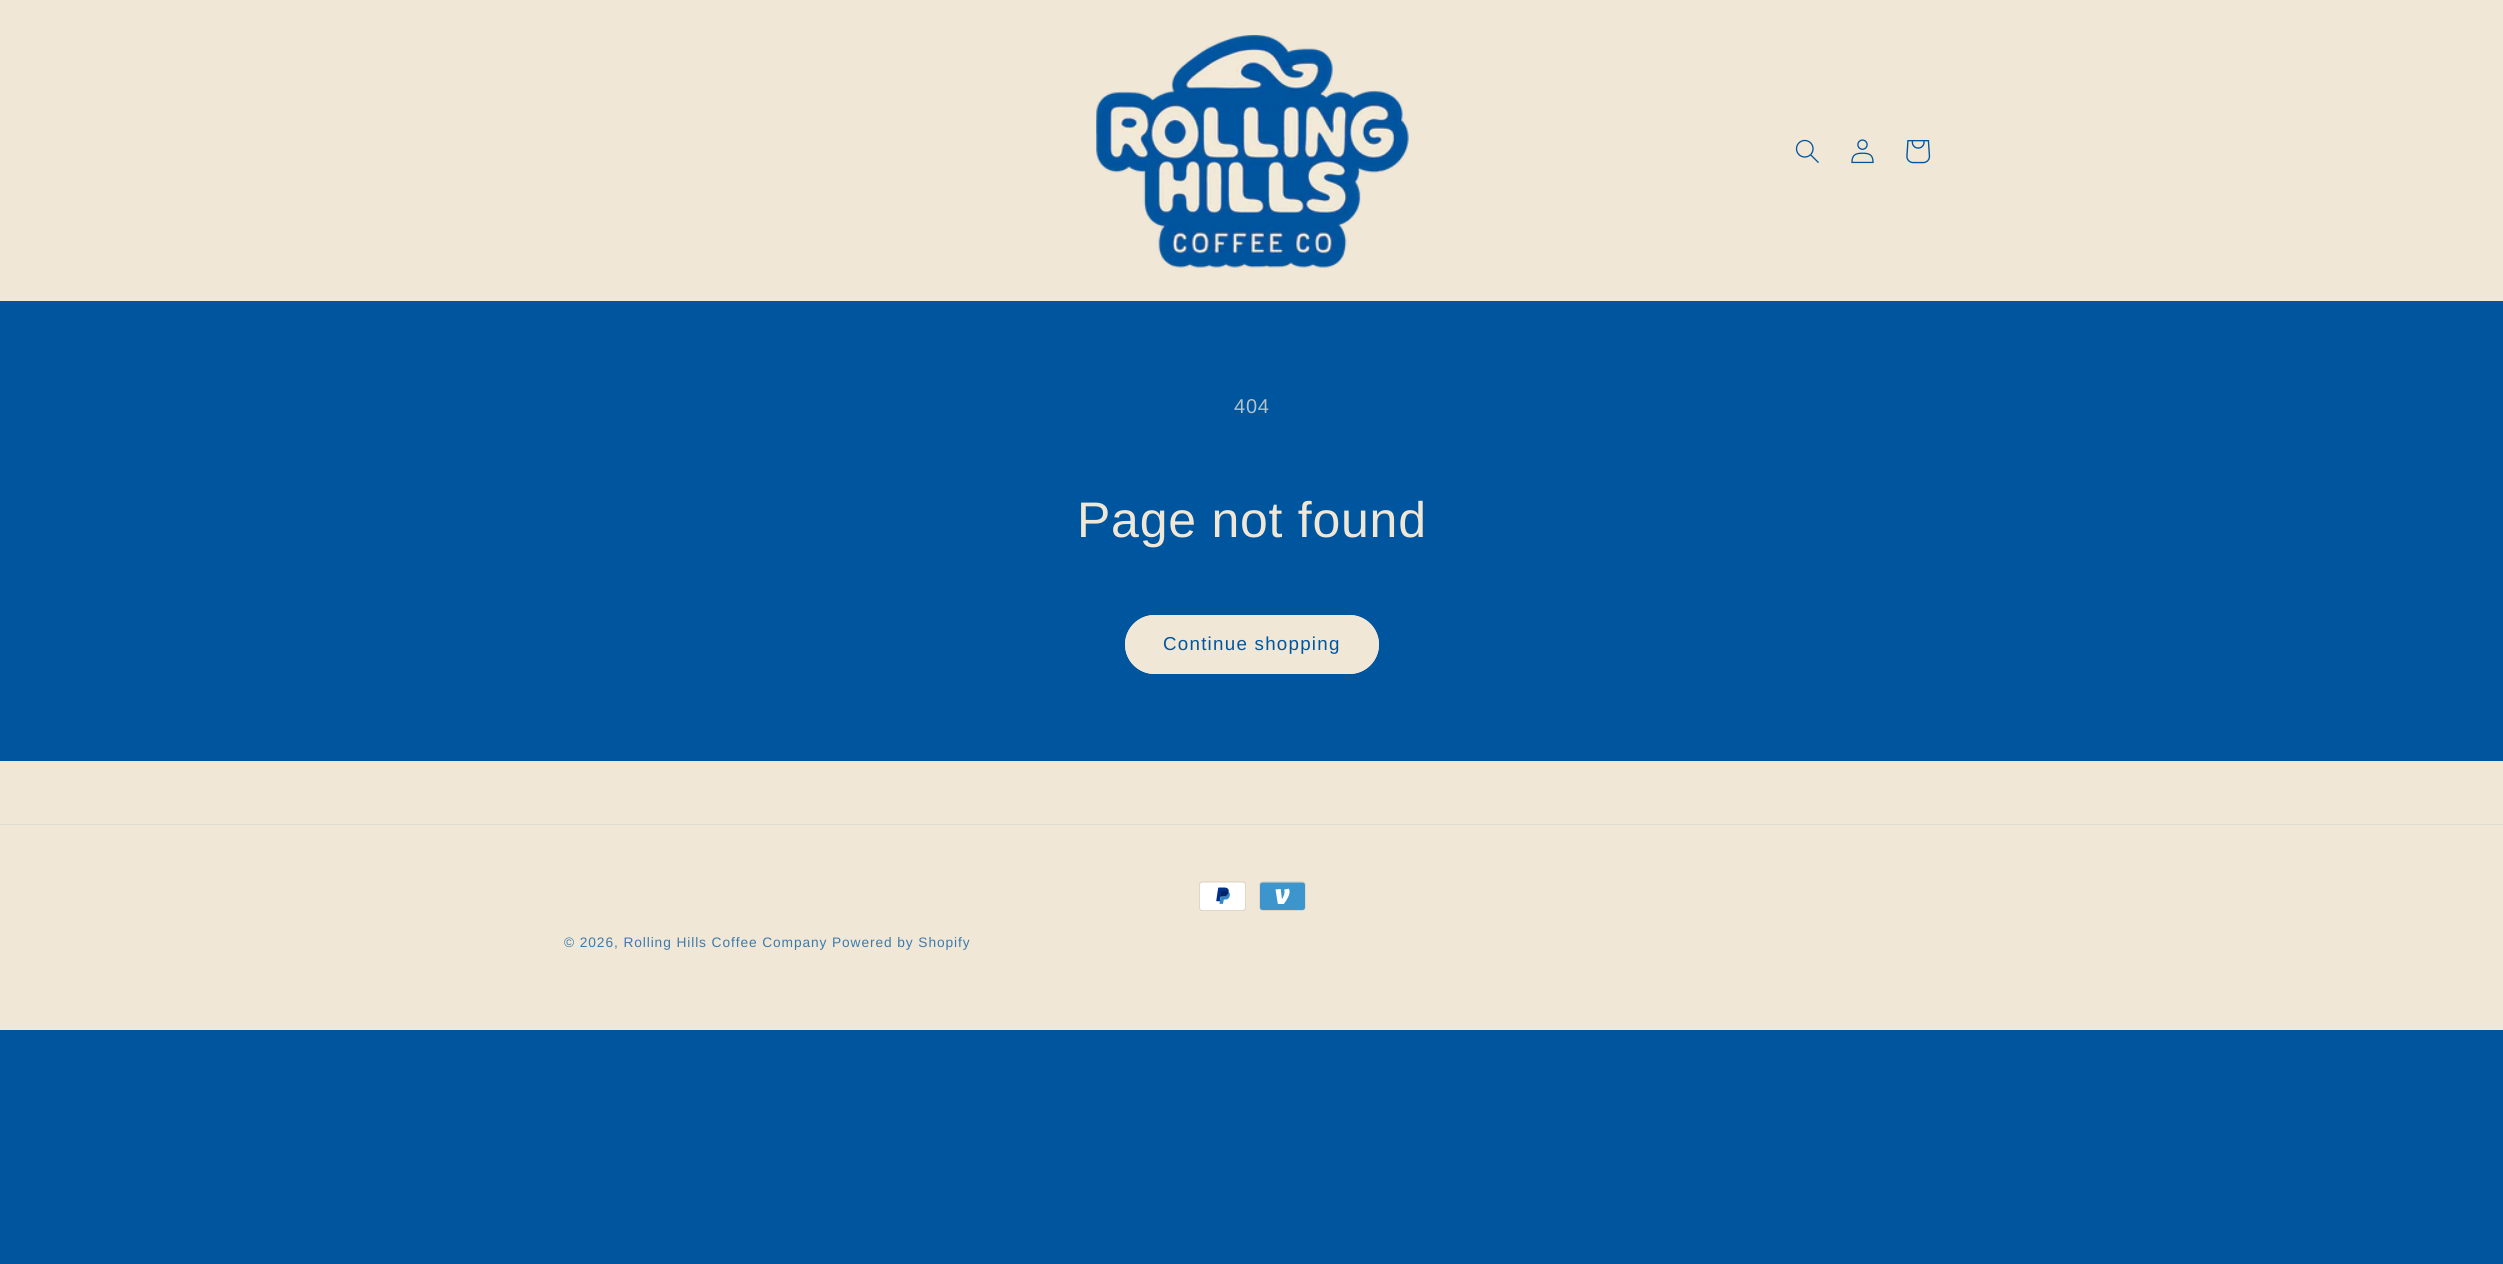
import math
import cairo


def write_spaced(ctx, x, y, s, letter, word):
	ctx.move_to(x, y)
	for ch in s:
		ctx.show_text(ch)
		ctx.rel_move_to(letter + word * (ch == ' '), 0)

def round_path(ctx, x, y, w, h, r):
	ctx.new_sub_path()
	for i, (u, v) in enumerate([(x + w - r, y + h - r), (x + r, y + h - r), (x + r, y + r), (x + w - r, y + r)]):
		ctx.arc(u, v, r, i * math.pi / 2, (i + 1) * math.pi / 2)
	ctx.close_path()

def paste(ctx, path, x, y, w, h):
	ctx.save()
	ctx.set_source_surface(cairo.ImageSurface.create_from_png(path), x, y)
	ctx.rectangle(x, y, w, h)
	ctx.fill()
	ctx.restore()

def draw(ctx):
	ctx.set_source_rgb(0, 0.333, 0.624)
	ctx.paint()
	ctx.set_source_rgb(0.941, 0.906, 0.839)
	ctx.rectangle(0, 0, 2503, 301)
	ctx.fill()
	paste(ctx, 'media/1.png', 1096, 35, 313, 233)
	paste(ctx, 'media/2.png', 1795, 139, 24, 24)
	paste(ctx, 'media/3.png', 1851, 139, 23, 25)
	paste(ctx, 'media/4.png', 1906, 140, 25, 24)
	ctx.select_font_face('Liberation Sans')
	ctx.set_font_size(20)
	ctx.set_source_rgb(0.706, 0.765, 0.784)
	write_spaced(ctx, 1234, 413, '404', 0.75, 0)
	ctx.set_font_size(50)
	ctx.set_source_rgb(0.941, 0.906, 0.839)
	write_spaced(ctx, 1077, 537, 'Page not found', 0.75, 0)
	round_path(ctx, 1125, 615, 254, 59, 29.5)
	ctx.fill()
	round_path(ctx, 1125.5, 615.5, 253, 58, 29)
	ctx.set_line_width(1)
	ctx.stroke()
	ctx.set_font_size(18.75)
	ctx.set_source_rgb(0, 0.333, 0.624)
	write_spaced(ctx, 1163, 650, 'Continue shopping', 1.25, 0)
	ctx.set_source_rgb(0.941, 0.906, 0.839)
	ctx.rectangle(0, 761, 2503, 269)
	ctx.fill()
	ctx.set_source_rgb(0.867, 0.859, 0.824)
	ctx.rectangle(0, 824, 2503, 1)
	ctx.fill()
	paste(ctx, 'media/5.png', 1199, 881, 47, 30)
	paste(ctx, 'media/6.png', 1259, 881, 47, 30)
	ctx.set_font_size(13.75)
	ctx.set_source_rgb(0.235, 0.478, 0.678)
	write_spaced(ctx, 564, 947, '© 2026, Rolling Hills Coffee Company', 0.9, 0)
	write_spaced(ctx, 832, 947, 'Powered by Shopify', 0.9, 0)


surface = cairo.ImageSurface(cairo.FORMAT_RGB24, 2503, 1264)
ctx = cairo.Context(surface)
options = cairo.FontOptions()
options.set_hint_metrics(cairo.HINT_METRICS_OFF)
options.set_hint_style(cairo.HINT_STYLE_NONE)
ctx.set_font_options(options)
ctx.set_miter_limit(4)
draw(ctx)
surface.write_to_png('image.png')
